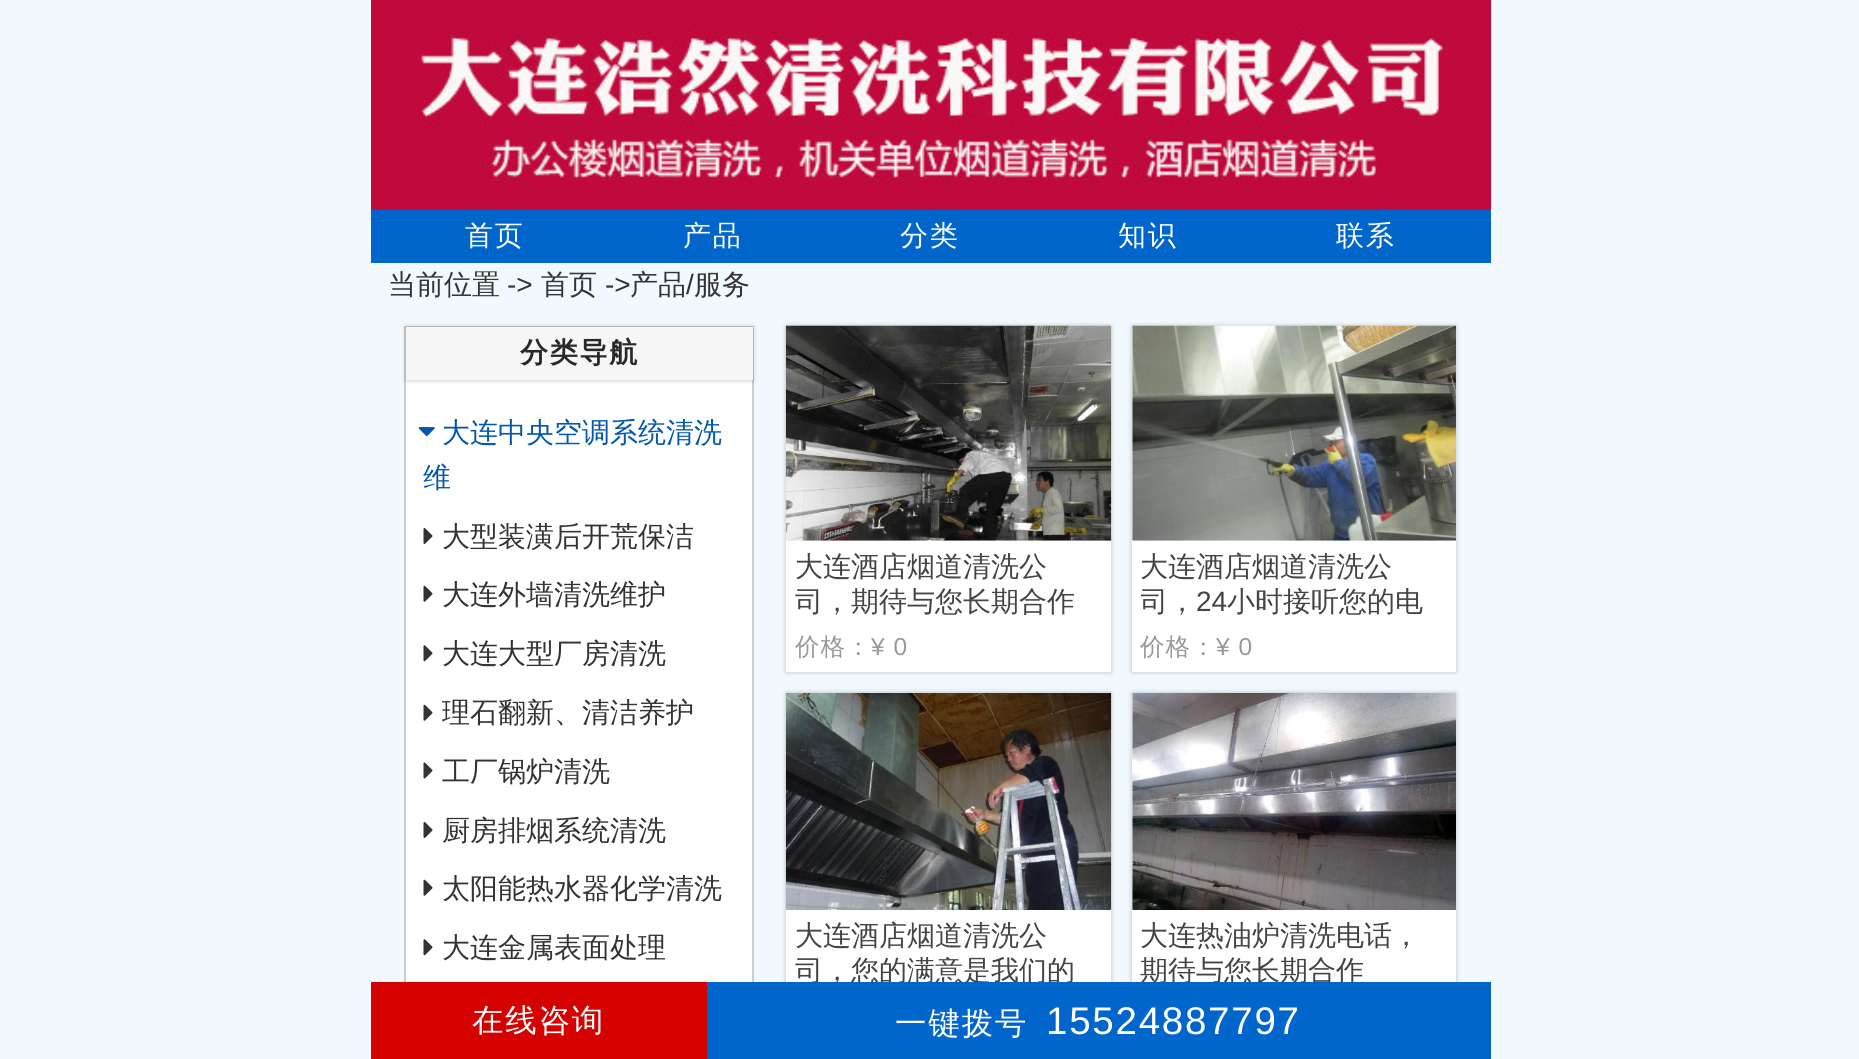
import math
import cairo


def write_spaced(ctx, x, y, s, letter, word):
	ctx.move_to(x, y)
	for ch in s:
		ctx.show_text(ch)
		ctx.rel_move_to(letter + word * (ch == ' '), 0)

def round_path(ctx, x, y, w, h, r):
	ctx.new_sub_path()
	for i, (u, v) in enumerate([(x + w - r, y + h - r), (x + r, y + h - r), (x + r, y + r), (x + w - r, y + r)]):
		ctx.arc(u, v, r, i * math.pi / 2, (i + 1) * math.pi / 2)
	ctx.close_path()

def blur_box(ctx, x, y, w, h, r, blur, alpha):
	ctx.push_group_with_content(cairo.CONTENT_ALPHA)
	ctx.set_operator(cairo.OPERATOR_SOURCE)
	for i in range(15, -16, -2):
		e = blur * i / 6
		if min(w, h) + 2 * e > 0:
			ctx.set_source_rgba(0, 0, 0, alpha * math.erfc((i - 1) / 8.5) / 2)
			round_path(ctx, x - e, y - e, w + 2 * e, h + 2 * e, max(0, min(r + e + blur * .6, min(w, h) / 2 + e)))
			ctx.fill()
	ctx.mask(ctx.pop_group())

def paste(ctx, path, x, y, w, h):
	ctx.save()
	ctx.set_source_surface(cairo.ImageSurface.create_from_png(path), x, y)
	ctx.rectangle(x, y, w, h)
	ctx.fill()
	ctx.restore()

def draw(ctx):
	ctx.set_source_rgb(0.945, 0.973, 1)
	ctx.paint()
	paste(ctx, 'media/1.png', 371, 0, 1120, 210)
	ctx.set_source_rgb(0, 0.4, 0.8)
	ctx.rectangle(371, 210, 1120, 53)
	ctx.fill()
	ctx.select_font_face('WenQuanYi Zen Hei Medium')
	ctx.set_font_size(28)
	ctx.set_source_rgb(1, 1, 1)
	for x, y, s in [
		(465, 245, '首页'),
		(683, 245, '产品'),
		(900, 245, '分类'),
		(1118, 245, '知识'),
		(1336, 245, '联系'),
	]:
		write_spaced(ctx, x, y, s, 1.75, 0)
	ctx.set_source_rgb(0.2, 0.2, 0.2)
	ctx.move_to(388, 294)
	ctx.show_text('当前位置')
	ctx.select_font_face('Liberation Sans')
	ctx.move_to(507, 294)
	ctx.show_text('->')
	ctx.select_font_face('WenQuanYi Zen Hei Medium')
	ctx.move_to(541, 294)
	ctx.show_text('首页')
	ctx.select_font_face('Liberation Sans')
	ctx.move_to(605, 294)
	ctx.show_text('->')
	ctx.select_font_face('WenQuanYi Zen Hei Medium')
	ctx.move_to(630, 294)
	ctx.show_text('产品')
	ctx.select_font_face('Liberation Sans')
	ctx.move_to(686, 294)
	ctx.show_text('/')
	ctx.select_font_face('WenQuanYi Zen Hei Medium')
	ctx.move_to(694, 294)
	ctx.show_text('服务')
	ctx.set_source_rgb(1, 1, 1)
	ctx.rectangle(406, 380, 346, 602)
	ctx.fill()
	ctx.rectangle(405, 327, 348, 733)
	ctx.set_source_rgb(0.8, 0.8, 0.8)
	ctx.stroke()
	ctx.set_source_rgb(0, 0, 0)
	blur_box(ctx, 406, 327, 347, 53, 0, 2.5, 0.25)
	ctx.set_source_rgb(0.961, 0.961, 0.961)
	ctx.rectangle(406, 327, 347, 53)
	ctx.fill()
	ctx.select_font_face('WenQuanYi Zen Hei', cairo.FONT_SLANT_NORMAL, cairo.FONT_WEIGHT_BOLD)
	ctx.set_source_rgb(0.157, 0.157, 0.157)
	write_spaced(ctx, 520, 362, '分类导航', 1.75, 0)
	paste(ctx, 'media/2.png', 418, 427, 17, 10)
	ctx.select_font_face('WenQuanYi Zen Hei Medium')
	ctx.set_source_rgb(0.012, 0.345, 0.678)
	ctx.move_to(442, 442)
	ctx.show_text('大连中央空调系统清洗')
	ctx.move_to(423, 487)
	ctx.show_text('维')
	paste(ctx, 'media/3.png', 423, 528, 10, 16)
	ctx.set_source_rgb(0.2, 0.2, 0.2)
	ctx.move_to(442, 546)
	ctx.show_text('大型装潢后开荒保洁')
	paste(ctx, 'media/4.png', 423, 585, 10, 17)
	ctx.move_to(442, 604)
	ctx.show_text('大连外墙清洗维护')
	paste(ctx, 'media/5.png', 423, 645, 10, 17)
	ctx.move_to(442, 663)
	ctx.show_text('大连大型厂房清洗')
	paste(ctx, 'media/4.png', 423, 704, 10, 17)
	ctx.move_to(442, 722)
	ctx.show_text('理石翻新、清洁养护')
	paste(ctx, 'media/6.png', 423, 762, 10, 17)
	ctx.move_to(442, 781)
	ctx.show_text('工厂锅炉清洗')
	paste(ctx, 'media/3.png', 423, 822, 10, 16)
	ctx.move_to(442, 840)
	ctx.show_text('厨房排烟系统清洗')
	paste(ctx, 'media/4.png', 423, 879, 10, 17)
	ctx.move_to(442, 898)
	ctx.show_text('太阳能热水器化学清洗')
	paste(ctx, 'media/5.png', 423, 939, 10, 17)
	ctx.move_to(442, 957)
	ctx.show_text('大连金属表面处理')
	ctx.set_source_rgb(0, 0, 0)
	blur_box(ctx, 786, 326, 325, 346, 0, 2.5, 0.25)
	ctx.set_source_rgb(1, 1, 1)
	ctx.rectangle(786, 540, 325, 132)
	ctx.fill()
	paste(ctx, 'media/7.png', 785, 325, 327, 216)
	ctx.set_source_rgb(0.267, 0.267, 0.267)
	ctx.move_to(795, 576)
	ctx.show_text('大连酒店烟道清洗公')
	ctx.move_to(795, 611)
	ctx.show_text('司，期待与您长期合作')
	ctx.set_font_size(24.5)
	ctx.set_source_rgb(0.6, 0.6, 0.6)
	write_spaced(ctx, 795, 655, '价格：', 1, 0)
	ctx.select_font_face('Liberation Sans')
	write_spaced(ctx, 871, 655, '¥ 0', 1, 0)
	ctx.set_source_rgb(0, 0, 0)
	blur_box(ctx, 1132, 326, 324, 346, 0, 2.5, 0.25)
	ctx.set_source_rgb(1, 1, 1)
	ctx.rectangle(1132, 326, 324, 346)
	ctx.fill()
	paste(ctx, 'media/8.png', 1132, 325, 324, 216)
	ctx.select_font_face('WenQuanYi Zen Hei Medium')
	ctx.set_font_size(28)
	ctx.set_source_rgb(0.267, 0.267, 0.267)
	ctx.move_to(1140, 576)
	ctx.show_text('大连酒店烟道清洗公')
	ctx.save()
	ctx.rectangle(1141, 550, 306, 70)
	ctx.clip()
	ctx.move_to(1140, 611)
	ctx.show_text('司，')
	ctx.restore()
	ctx.select_font_face('Liberation Sans')
	ctx.move_to(1196, 611)
	ctx.show_text('24')
	ctx.select_font_face('WenQuanYi Zen Hei Medium')
	ctx.move_to(1227, 611)
	ctx.show_text('小时接听您的电')
	ctx.set_font_size(24.5)
	ctx.set_source_rgb(0.6, 0.6, 0.6)
	write_spaced(ctx, 1140, 655, '价格：', 1, 0)
	ctx.select_font_face('Liberation Sans')
	write_spaced(ctx, 1216, 655, '¥ 0', 1, 0)
	ctx.set_source_rgb(0, 0, 0)
	blur_box(ctx, 786, 693, 325, 348, 0, 2.5, 0.25)
	ctx.set_source_rgb(1, 1, 1)
	ctx.rectangle(786, 910, 325, 72)
	ctx.fill()
	paste(ctx, 'media/9.png', 785, 693, 327, 217)
	ctx.select_font_face('WenQuanYi Zen Hei Medium')
	ctx.set_font_size(28)
	ctx.set_source_rgb(0.267, 0.267, 0.267)
	ctx.move_to(795, 945)
	ctx.show_text('大连酒店烟道清洗公')
	ctx.move_to(795, 980)
	ctx.show_text('司，您的满意是我们的')
	ctx.set_source_rgb(0, 0, 0)
	blur_box(ctx, 1132, 693, 324, 348, 0, 2.5, 0.25)
	ctx.set_source_rgb(1, 1, 1)
	ctx.rectangle(1132, 693, 324, 289)
	ctx.fill()
	paste(ctx, 'media/10.png', 1132, 693, 324, 217)
	ctx.set_source_rgb(0.267, 0.267, 0.267)
	ctx.move_to(1140, 945)
	ctx.show_text('大连热油炉清洗电话，')
	ctx.move_to(1140, 980)
	ctx.show_text('期待与您长期合作')
	ctx.set_source_rgb(0.835, 0, 0)
	ctx.rectangle(371, 982, 336, 77)
	ctx.fill()
	ctx.set_font_size(31.5)
	ctx.set_source_rgb(1, 1, 1)
	write_spaced(ctx, 472, 1031, '在线咨询', 1.75, 0)
	ctx.set_source_rgb(0, 0.4, 0.8)
	ctx.rectangle(707, 982, 784, 77)
	ctx.fill()
	ctx.set_source_rgb(1, 1, 1)
	write_spaced(ctx, 895, 1034, '一键拨号', 1.75, 0)
	ctx.select_font_face('Liberation Sans')
	ctx.set_font_size(38.5)
	write_spaced(ctx, 1046, 1034, '15524887797', 1.75, 0)


surface = cairo.ImageSurface(cairo.FORMAT_RGB24, 1859, 1059)
ctx = cairo.Context(surface)
options = cairo.FontOptions()
options.set_hint_metrics(cairo.HINT_METRICS_OFF)
options.set_hint_style(cairo.HINT_STYLE_NONE)
ctx.set_font_options(options)
ctx.set_miter_limit(4)
draw(ctx)
surface.write_to_png('image.png')
